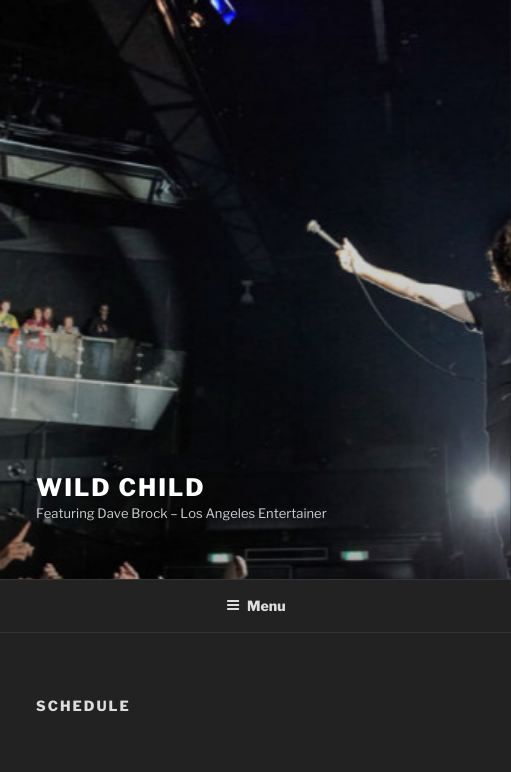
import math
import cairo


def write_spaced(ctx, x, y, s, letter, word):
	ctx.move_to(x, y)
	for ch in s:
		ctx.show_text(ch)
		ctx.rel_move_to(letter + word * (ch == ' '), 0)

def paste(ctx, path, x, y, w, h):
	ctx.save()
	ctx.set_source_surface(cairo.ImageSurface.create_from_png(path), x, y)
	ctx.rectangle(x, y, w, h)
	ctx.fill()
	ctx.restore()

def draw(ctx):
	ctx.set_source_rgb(0.149, 0.149, 0.149)
	ctx.paint()
	paste(ctx, 'media/1.png', 0, 0, 511, 579)
	gradient = cairo.LinearGradient(255, 0, 256, 579)
	gradient.add_color_stop_rgba(0, 0, 0, 0, 0)
	gradient.add_color_stop_rgba(0.75, 0, 0, 0, 0.3)
	gradient.add_color_stop_rgba(1, 0, 0, 0, 0.3)
	ctx.set_source(gradient)
	ctx.rectangle(0, 101, 511, 478)
	ctx.fill()
	ctx.select_font_face('Libre Franklin Thin')
	ctx.set_font_size(24)
	ctx.set_source_rgb(1, 1, 1)
	write_spaced(ctx, 36, 496, 'WILD CHILD', 2, 0)
	ctx.select_font_face('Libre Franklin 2 Thin')
	ctx.set_font_size(13)
	ctx.set_source_rgb(0.808, 0.812, 0.812)
	ctx.move_to(36, 518)
	ctx.show_text('Featuring Dave Brock – Los Angeles Entertainer')
	ctx.set_source_rgb(0.133, 0.133, 0.133)
	ctx.rectangle(0, 580, 511, 52)
	ctx.fill()
	ctx.set_source_rgb(0.2, 0.2, 0.2)
	ctx.rectangle(0, 579, 511, 1)
	ctx.rectangle(0, 632, 511, 1)
	ctx.fill()
	paste(ctx, 'media/2.png', 227, 600, 13, 10)
	ctx.select_font_face('Libre Franklin Thin')
	ctx.set_font_size(14)
	ctx.set_source_rgb(0.867, 0.867, 0.867)
	ctx.move_to(247, 611)
	ctx.show_text('Menu')
	ctx.set_source_rgb(0.133, 0.133, 0.133)
	ctx.rectangle(0, 633, 511, 139)
	ctx.fill()
	ctx.set_source_rgb(0.867, 0.867, 0.867)
	write_spaced(ctx, 36, 711, 'SCHEDULE', 2, 0)


surface = cairo.ImageSurface(cairo.FORMAT_RGB24, 511, 772)
ctx = cairo.Context(surface)
options = cairo.FontOptions()
options.set_hint_metrics(cairo.HINT_METRICS_OFF)
options.set_hint_style(cairo.HINT_STYLE_NONE)
ctx.set_font_options(options)
ctx.set_miter_limit(4)
draw(ctx)
surface.write_to_png('image.png')
